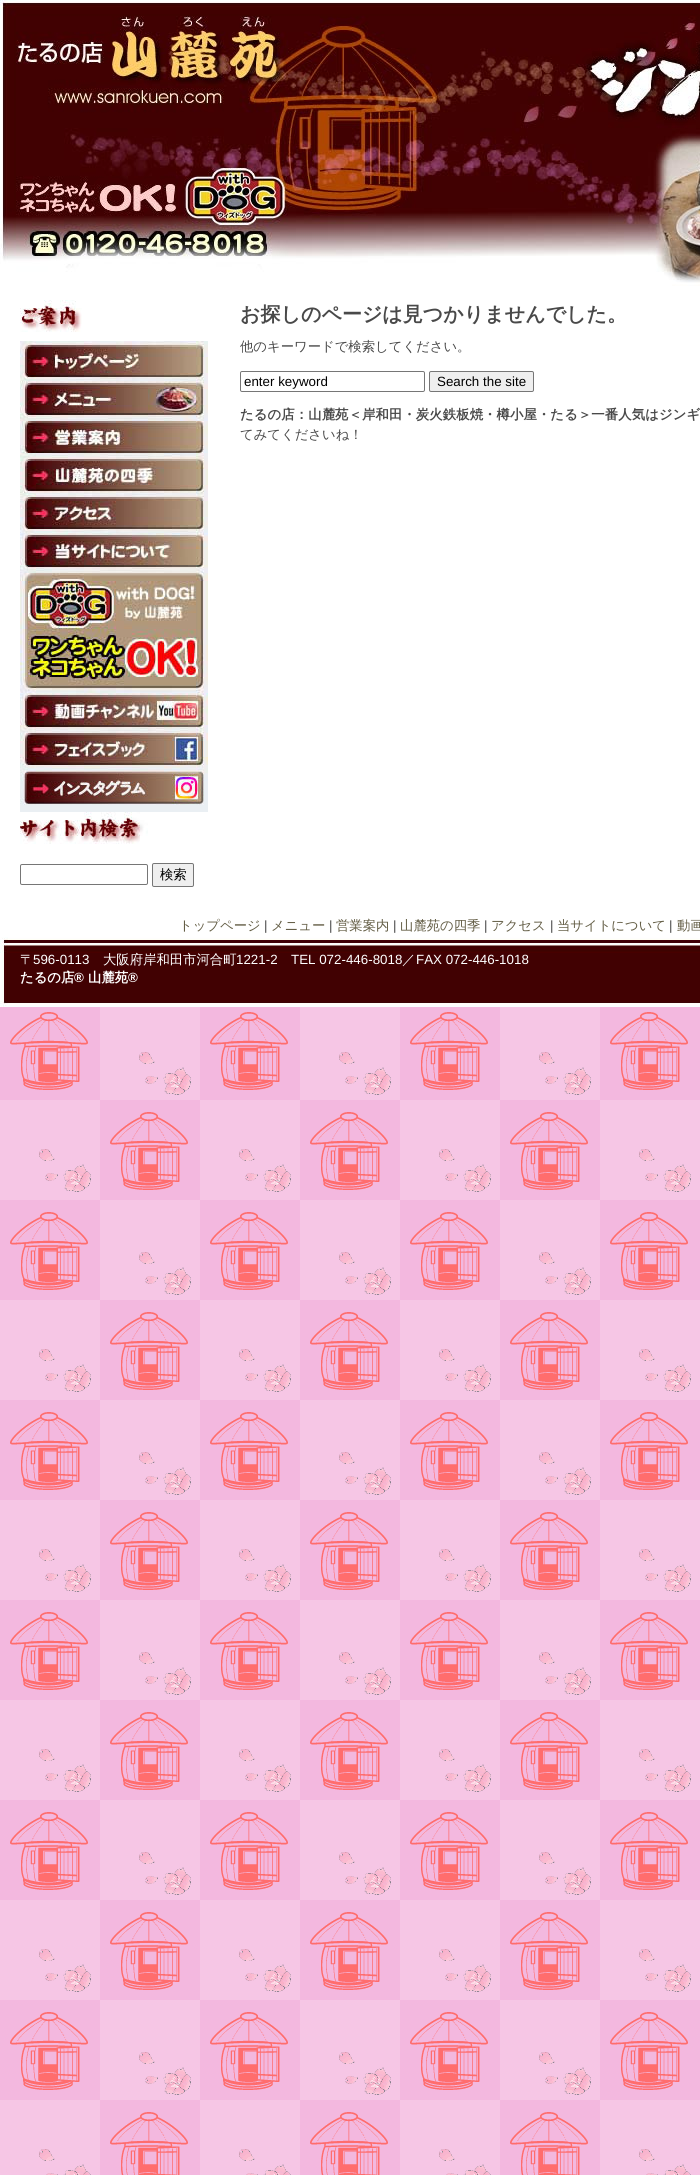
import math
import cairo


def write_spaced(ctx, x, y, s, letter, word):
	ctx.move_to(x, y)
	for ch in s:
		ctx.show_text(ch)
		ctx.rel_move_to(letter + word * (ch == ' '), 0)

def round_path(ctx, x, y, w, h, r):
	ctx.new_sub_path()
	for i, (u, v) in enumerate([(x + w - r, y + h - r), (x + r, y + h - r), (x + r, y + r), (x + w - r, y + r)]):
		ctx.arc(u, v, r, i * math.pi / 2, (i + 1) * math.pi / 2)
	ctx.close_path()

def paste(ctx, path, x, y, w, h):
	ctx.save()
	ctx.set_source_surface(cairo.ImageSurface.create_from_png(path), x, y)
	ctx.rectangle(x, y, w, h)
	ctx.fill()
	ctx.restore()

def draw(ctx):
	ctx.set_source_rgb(1, 1, 1)
	ctx.paint()
	paste(ctx, 'media/1.png', 0, 1007, 700, 1168)
	paste(ctx, 'media/2.png', 0, 0, 700, 286)
	ctx.select_font_face('WenQuanYi Zen Hei', cairo.FONT_SLANT_NORMAL, cairo.FONT_WEIGHT_BOLD)
	ctx.set_font_size(20)
	ctx.set_source_rgb(0.286, 0.286, 0.286)
	ctx.move_to(240, 321)
	ctx.show_text('お探しのページは見つかりませんでした。')
	ctx.select_font_face('WenQuanYi Zen Hei Medium')
	ctx.set_font_size(13.35)
	ctx.move_to(240, 351)
	ctx.show_text('他のキーワードで検索してください。')
	round_path(ctx, 240.5, 371.5, 184, 20, 1.5)
	ctx.set_source_rgb(0.463, 0.463, 0.463)
	ctx.set_line_width(1)
	ctx.stroke()
	ctx.select_font_face('Liberation Sans')
	ctx.set_source_rgb(0, 0, 0)
	ctx.move_to(244, 386)
	ctx.show_text('enter keyword')
	ctx.set_source_rgb(0.937, 0.937, 0.937)
	round_path(ctx, 429.5, 371.5, 104, 20, 1.5)
	ctx.fill_preserve()
	ctx.set_source_rgb(0.463, 0.463, 0.463)
	ctx.stroke()
	ctx.set_source_rgb(0, 0, 0)
	ctx.move_to(437, 386)
	ctx.show_text('Search the site')
	ctx.select_font_face('WenQuanYi Zen Hei', cairo.FONT_SLANT_NORMAL, cairo.FONT_WEIGHT_BOLD)
	ctx.set_source_rgb(0.286, 0.286, 0.286)
	write_spaced(ctx, 240, 419, 'たるの店：山麓苑＜岸和田・炭火鉄板焼・樽小屋・たる＞一番人気はジンギ', 0.1, 0)
	ctx.select_font_face('WenQuanYi Zen Hei Medium')
	ctx.move_to(240, 439)
	ctx.show_text('てみてくださいね！')
	paste(ctx, 'media/3.png', 20, 300, 62, 32)
	paste(ctx, 'media/4.png', 20, 341, 188, 471)
	paste(ctx, 'media/5.png', 20, 812, 128, 32)
	round_path(ctx, 20.5, 864.5, 127, 20, 1.5)
	ctx.set_source_rgb(0.463, 0.463, 0.463)
	ctx.stroke()
	ctx.set_source_rgb(0.937, 0.937, 0.937)
	round_path(ctx, 152.5, 863.5, 41, 23, 1.5)
	ctx.fill_preserve()
	ctx.set_source_rgb(0.463, 0.463, 0.463)
	ctx.stroke()
	ctx.set_source_rgb(0, 0, 0)
	ctx.move_to(160, 879)
	ctx.show_text('検索')
	paste(ctx, 'media/6.png', 0, 937, 700, 70)
	ctx.set_source_rgb(0.388, 0.365, 0.271)
	ctx.move_to(179, 930)
	ctx.show_text('トップページ')
	ctx.select_font_face('Liberation Sans')
	ctx.set_source_rgb(0.286, 0.286, 0.286)
	ctx.move_to(264, 930)
	ctx.show_text('|')
	ctx.select_font_face('WenQuanYi Zen Hei Medium')
	ctx.set_source_rgb(0.388, 0.365, 0.271)
	ctx.move_to(271, 930)
	ctx.show_text('メニュー')
	ctx.select_font_face('Liberation Sans')
	ctx.set_source_rgb(0.286, 0.286, 0.286)
	ctx.move_to(329, 930)
	ctx.show_text('|')
	ctx.select_font_face('WenQuanYi Zen Hei Medium')
	ctx.set_source_rgb(0.388, 0.365, 0.271)
	ctx.move_to(336, 930)
	ctx.show_text('営業案内')
	ctx.select_font_face('Liberation Sans')
	ctx.set_source_rgb(0.286, 0.286, 0.286)
	ctx.move_to(393, 930)
	ctx.show_text('|')
	ctx.select_font_face('WenQuanYi Zen Hei Medium')
	ctx.set_source_rgb(0.388, 0.365, 0.271)
	ctx.move_to(400, 930)
	ctx.show_text('山麓苑の四季')
	ctx.select_font_face('Liberation Sans')
	ctx.set_source_rgb(0.286, 0.286, 0.286)
	ctx.move_to(484, 930)
	ctx.show_text('|')
	ctx.select_font_face('WenQuanYi Zen Hei Medium')
	ctx.set_source_rgb(0.388, 0.365, 0.271)
	ctx.move_to(491, 930)
	ctx.show_text('アクセス')
	ctx.select_font_face('Liberation Sans')
	ctx.set_source_rgb(0.286, 0.286, 0.286)
	ctx.move_to(550, 930)
	ctx.show_text('|')
	ctx.select_font_face('WenQuanYi Zen Hei Medium')
	ctx.set_source_rgb(0.388, 0.365, 0.271)
	ctx.move_to(557, 930)
	ctx.show_text('当サイトについて')
	ctx.select_font_face('Liberation Sans')
	ctx.set_source_rgb(0.286, 0.286, 0.286)
	ctx.move_to(669, 930)
	ctx.show_text('|')
	ctx.select_font_face('WenQuanYi Zen Hei Medium')
	ctx.set_source_rgb(0.388, 0.365, 0.271)
	ctx.move_to(677, 930)
	ctx.show_text('動画')
	ctx.set_source_rgb(1, 1, 1)
	ctx.move_to(20, 964)
	ctx.show_text('〒')
	ctx.select_font_face('Liberation Sans')
	ctx.move_to(33, 964)
	ctx.show_text('596-0113')
	ctx.select_font_face('WenQuanYi Zen Hei Medium')
	ctx.move_to(103, 964)
	ctx.show_text('大阪府岸和田市河合町')
	ctx.select_font_face('Liberation Sans')
	ctx.move_to(236, 964)
	ctx.show_text('1221-2')
	ctx.move_to(291, 964)
	ctx.show_text('TEL 072-446-8018')
	ctx.select_font_face('WenQuanYi Zen Hei Medium')
	ctx.move_to(402, 964)
	ctx.show_text('／')
	ctx.select_font_face('Liberation Sans')
	ctx.move_to(416, 964)
	ctx.show_text('FAX 072-446-1018')
	ctx.select_font_face('WenQuanYi Zen Hei', cairo.FONT_SLANT_NORMAL, cairo.FONT_WEIGHT_BOLD)
	ctx.move_to(20, 982)
	ctx.show_text('たるの店')
	ctx.select_font_face('Liberation Sans', cairo.FONT_SLANT_NORMAL, cairo.FONT_WEIGHT_BOLD)
	ctx.move_to(74, 982)
	ctx.show_text('®')
	ctx.select_font_face('WenQuanYi Zen Hei', cairo.FONT_SLANT_NORMAL, cairo.FONT_WEIGHT_BOLD)
	ctx.move_to(88, 982)
	ctx.show_text('山麓苑')
	ctx.select_font_face('Liberation Sans', cairo.FONT_SLANT_NORMAL, cairo.FONT_WEIGHT_BOLD)
	ctx.move_to(128, 982)
	ctx.show_text('®')


surface = cairo.ImageSurface(cairo.FORMAT_RGB24, 700, 2175)
ctx = cairo.Context(surface)
options = cairo.FontOptions()
options.set_hint_metrics(cairo.HINT_METRICS_OFF)
options.set_hint_style(cairo.HINT_STYLE_NONE)
ctx.set_font_options(options)
ctx.set_miter_limit(4)
draw(ctx)
surface.write_to_png('image.png')
